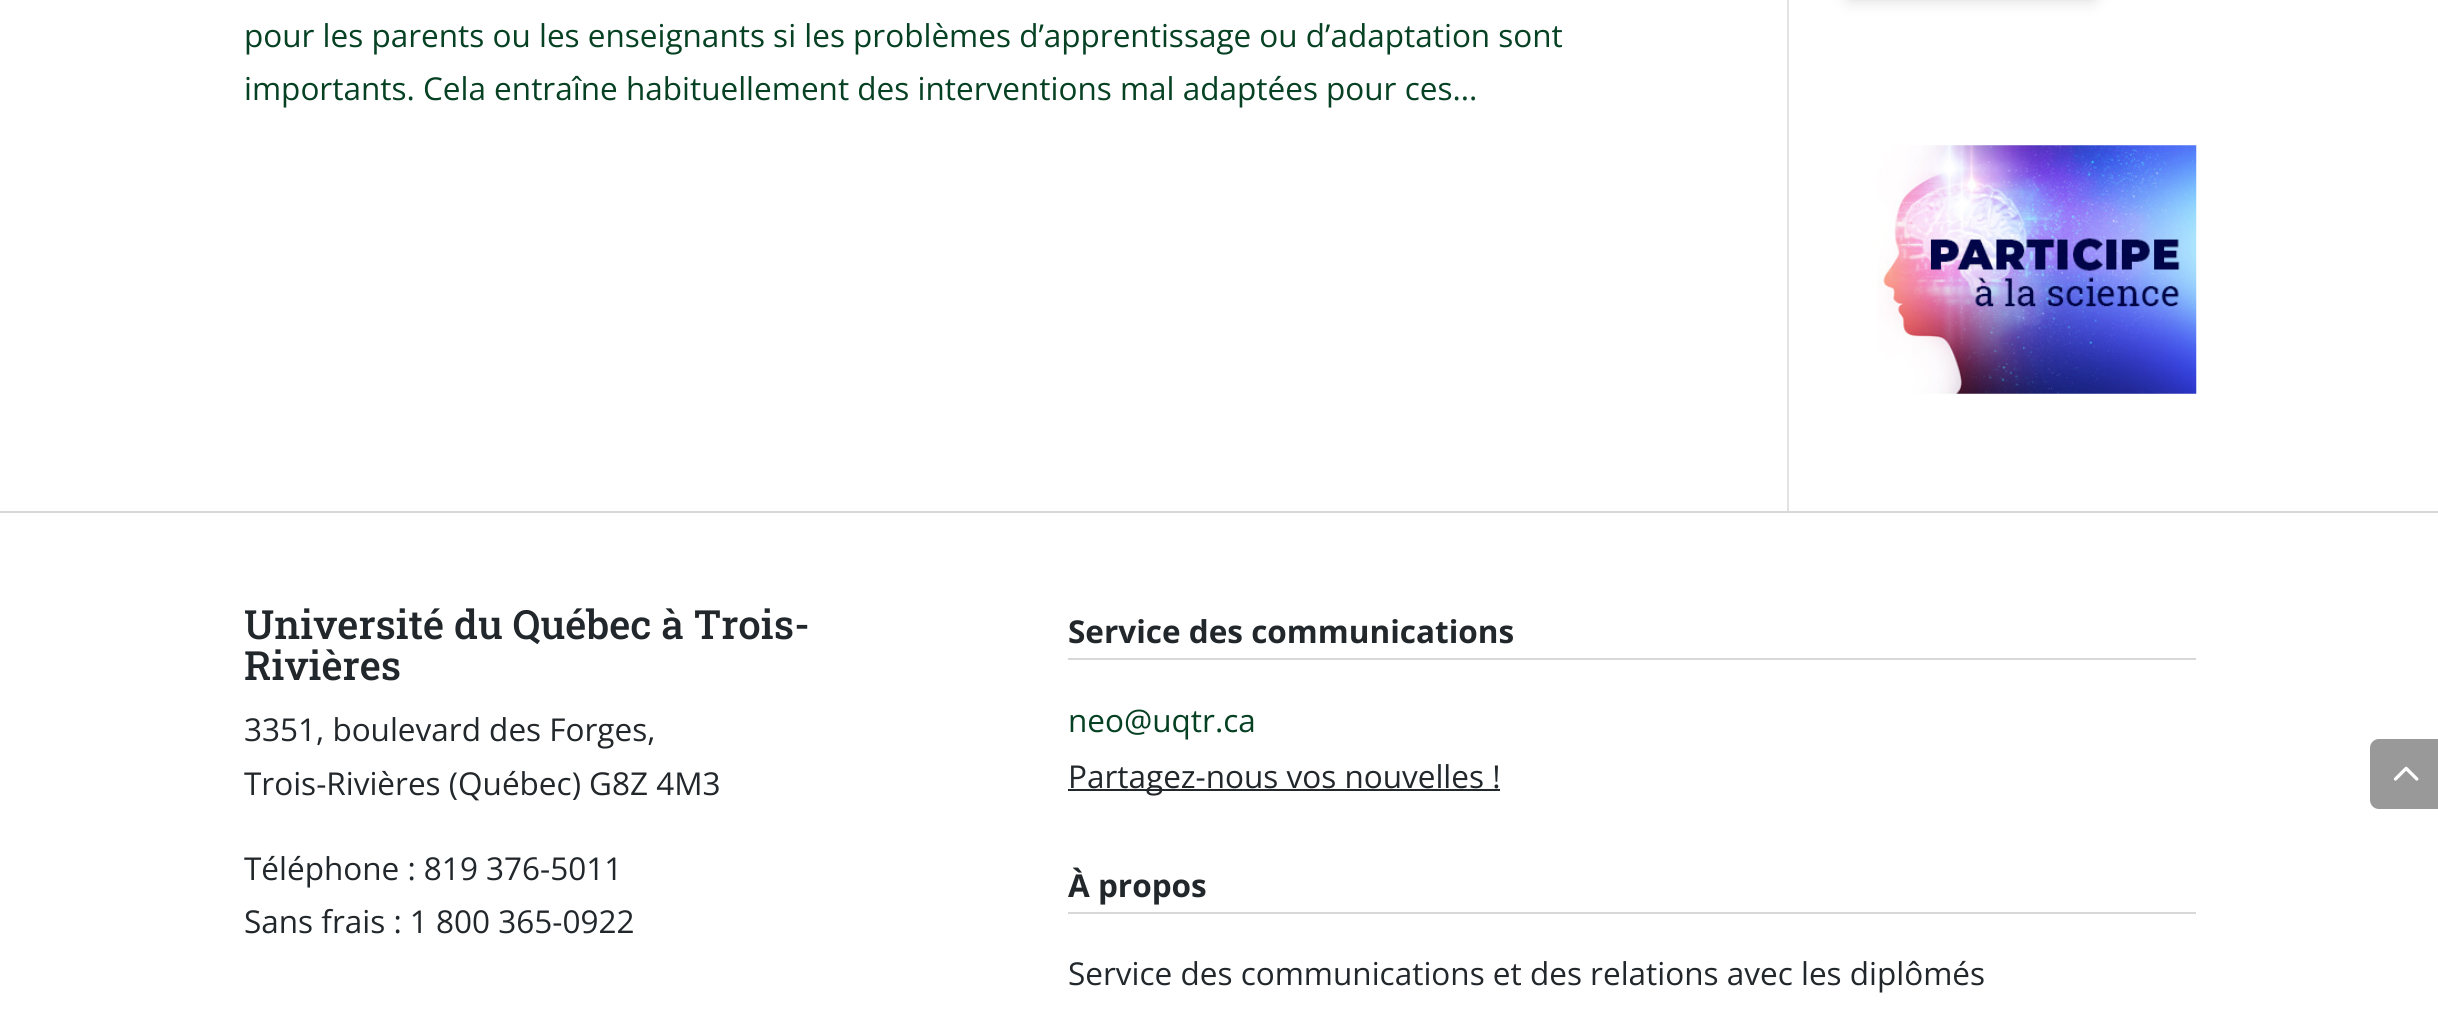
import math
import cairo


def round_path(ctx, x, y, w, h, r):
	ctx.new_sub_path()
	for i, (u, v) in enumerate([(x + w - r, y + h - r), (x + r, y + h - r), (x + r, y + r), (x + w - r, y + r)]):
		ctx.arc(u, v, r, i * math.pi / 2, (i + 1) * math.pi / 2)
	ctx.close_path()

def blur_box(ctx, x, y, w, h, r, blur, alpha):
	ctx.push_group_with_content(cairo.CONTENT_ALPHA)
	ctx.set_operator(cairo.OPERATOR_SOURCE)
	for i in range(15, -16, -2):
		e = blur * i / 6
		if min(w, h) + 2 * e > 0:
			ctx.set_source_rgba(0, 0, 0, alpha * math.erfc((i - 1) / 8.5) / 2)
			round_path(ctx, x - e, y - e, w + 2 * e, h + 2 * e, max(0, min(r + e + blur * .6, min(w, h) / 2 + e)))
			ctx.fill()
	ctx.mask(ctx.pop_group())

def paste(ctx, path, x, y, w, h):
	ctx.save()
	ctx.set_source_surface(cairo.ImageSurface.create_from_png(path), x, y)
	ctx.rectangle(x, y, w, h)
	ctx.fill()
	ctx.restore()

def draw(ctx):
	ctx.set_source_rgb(1, 1, 1)
	ctx.paint()
	ctx.select_font_face('Open Sans')
	ctx.set_font_size(31.5)
	ctx.set_source_rgb(0.024, 0.255, 0.137)
	ctx.move_to(244, 47)
	ctx.show_text('pour les parents ou les enseignants si les problèmes d’apprentissage ou d’adaptation sont')
	ctx.move_to(244, 100)
	ctx.show_text('importants. Cela entraîne habituellement des interventions mal adaptées pour ces...')
	ctx.set_source_rgb(0.8, 0.8, 0.8)
	blur_box(ctx, 1850, -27, 243, 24, 0, 9, 1)
	paste(ctx, 'media/1.png', 1877, 145, 320, 249)
	ctx.set_source_rgb(0.886, 0.886, 0.886)
	ctx.rectangle(1787, 0, 2, 511)
	ctx.fill()
	ctx.set_source_rgb(0.847, 0.847, 0.847)
	ctx.rectangle(0, 511, 2438, 2)
	ctx.fill()
	ctx.select_font_face('Roboto Slab Medium')
	ctx.set_font_size(40.25)
	ctx.set_source_rgb(0.133, 0.153, 0.169)
	ctx.move_to(244, 639)
	ctx.show_text('Université du Québec à Trois-')
	ctx.move_to(244, 680)
	ctx.show_text('Rivières')
	ctx.select_font_face('Open Sans')
	ctx.set_font_size(31.5)
	for x, y, s in [
		(244, 741, '3351, boulevard des Forges,'),
		(244, 795, 'Trois-Rivières (Québec) G8Z 4M3'),
		(244, 880, 'Téléphone : 819 376-5011'),
		(244, 933, 'Sans frais : 1 800 365-0922'),
	]:
		ctx.move_to(x, y)
		ctx.show_text(s)
	ctx.set_source_rgb(0.847, 0.847, 0.847)
	ctx.rectangle(1068, 658, 1128, 2)
	ctx.fill()
	ctx.select_font_face('Open Sans', cairo.FONT_SLANT_NORMAL, cairo.FONT_WEIGHT_BOLD)
	ctx.set_source_rgb(0.133, 0.153, 0.169)
	ctx.move_to(1068, 643)
	ctx.show_text('Service des communications')
	ctx.select_font_face('Open Sans')
	ctx.set_source_rgb(0.024, 0.255, 0.137)
	ctx.move_to(1068, 732)
	ctx.show_text('neo@uqtr.ca')
	ctx.set_source_rgb(0.133, 0.153, 0.169)
	ctx.rectangle(1068, 789, 432, 2)
	ctx.fill()
	ctx.move_to(1068, 788)
	ctx.show_text('Partagez-nous vos nouvelles !')
	ctx.set_source_rgb(0.847, 0.847, 0.847)
	ctx.rectangle(1068, 912, 1128, 2)
	ctx.fill()
	ctx.select_font_face('Open Sans', cairo.FONT_SLANT_NORMAL, cairo.FONT_WEIGHT_BOLD)
	ctx.set_source_rgb(0.133, 0.153, 0.169)
	ctx.move_to(1068, 897)
	ctx.show_text('À propos')
	ctx.select_font_face('Open Sans')
	ctx.move_to(1068, 985)
	ctx.show_text('Service des communications et des relations avec les diplômés')
	ctx.set_source_rgb(0.6, 0.6, 0.6)
	ctx.new_path()
	ctx.move_to(2379, 739)
	ctx.line_to(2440, 739)
	ctx.line_to(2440, 809)
	ctx.line_to(2379, 809)
	ctx.curve_to(2374, 809, 2370, 805, 2370, 800)
	ctx.line_to(2370, 748)
	ctx.curve_to(2370, 743, 2374, 739, 2379, 739)
	ctx.close_path()
	ctx.fill()
	paste(ctx, 'media/2.png', 2393, 766, 26, 15)


surface = cairo.ImageSurface(cairo.FORMAT_RGB24, 2438, 1026)
ctx = cairo.Context(surface)
options = cairo.FontOptions()
options.set_hint_metrics(cairo.HINT_METRICS_OFF)
options.set_hint_style(cairo.HINT_STYLE_NONE)
ctx.set_font_options(options)
ctx.set_miter_limit(4)
draw(ctx)
surface.write_to_png('image.png')
